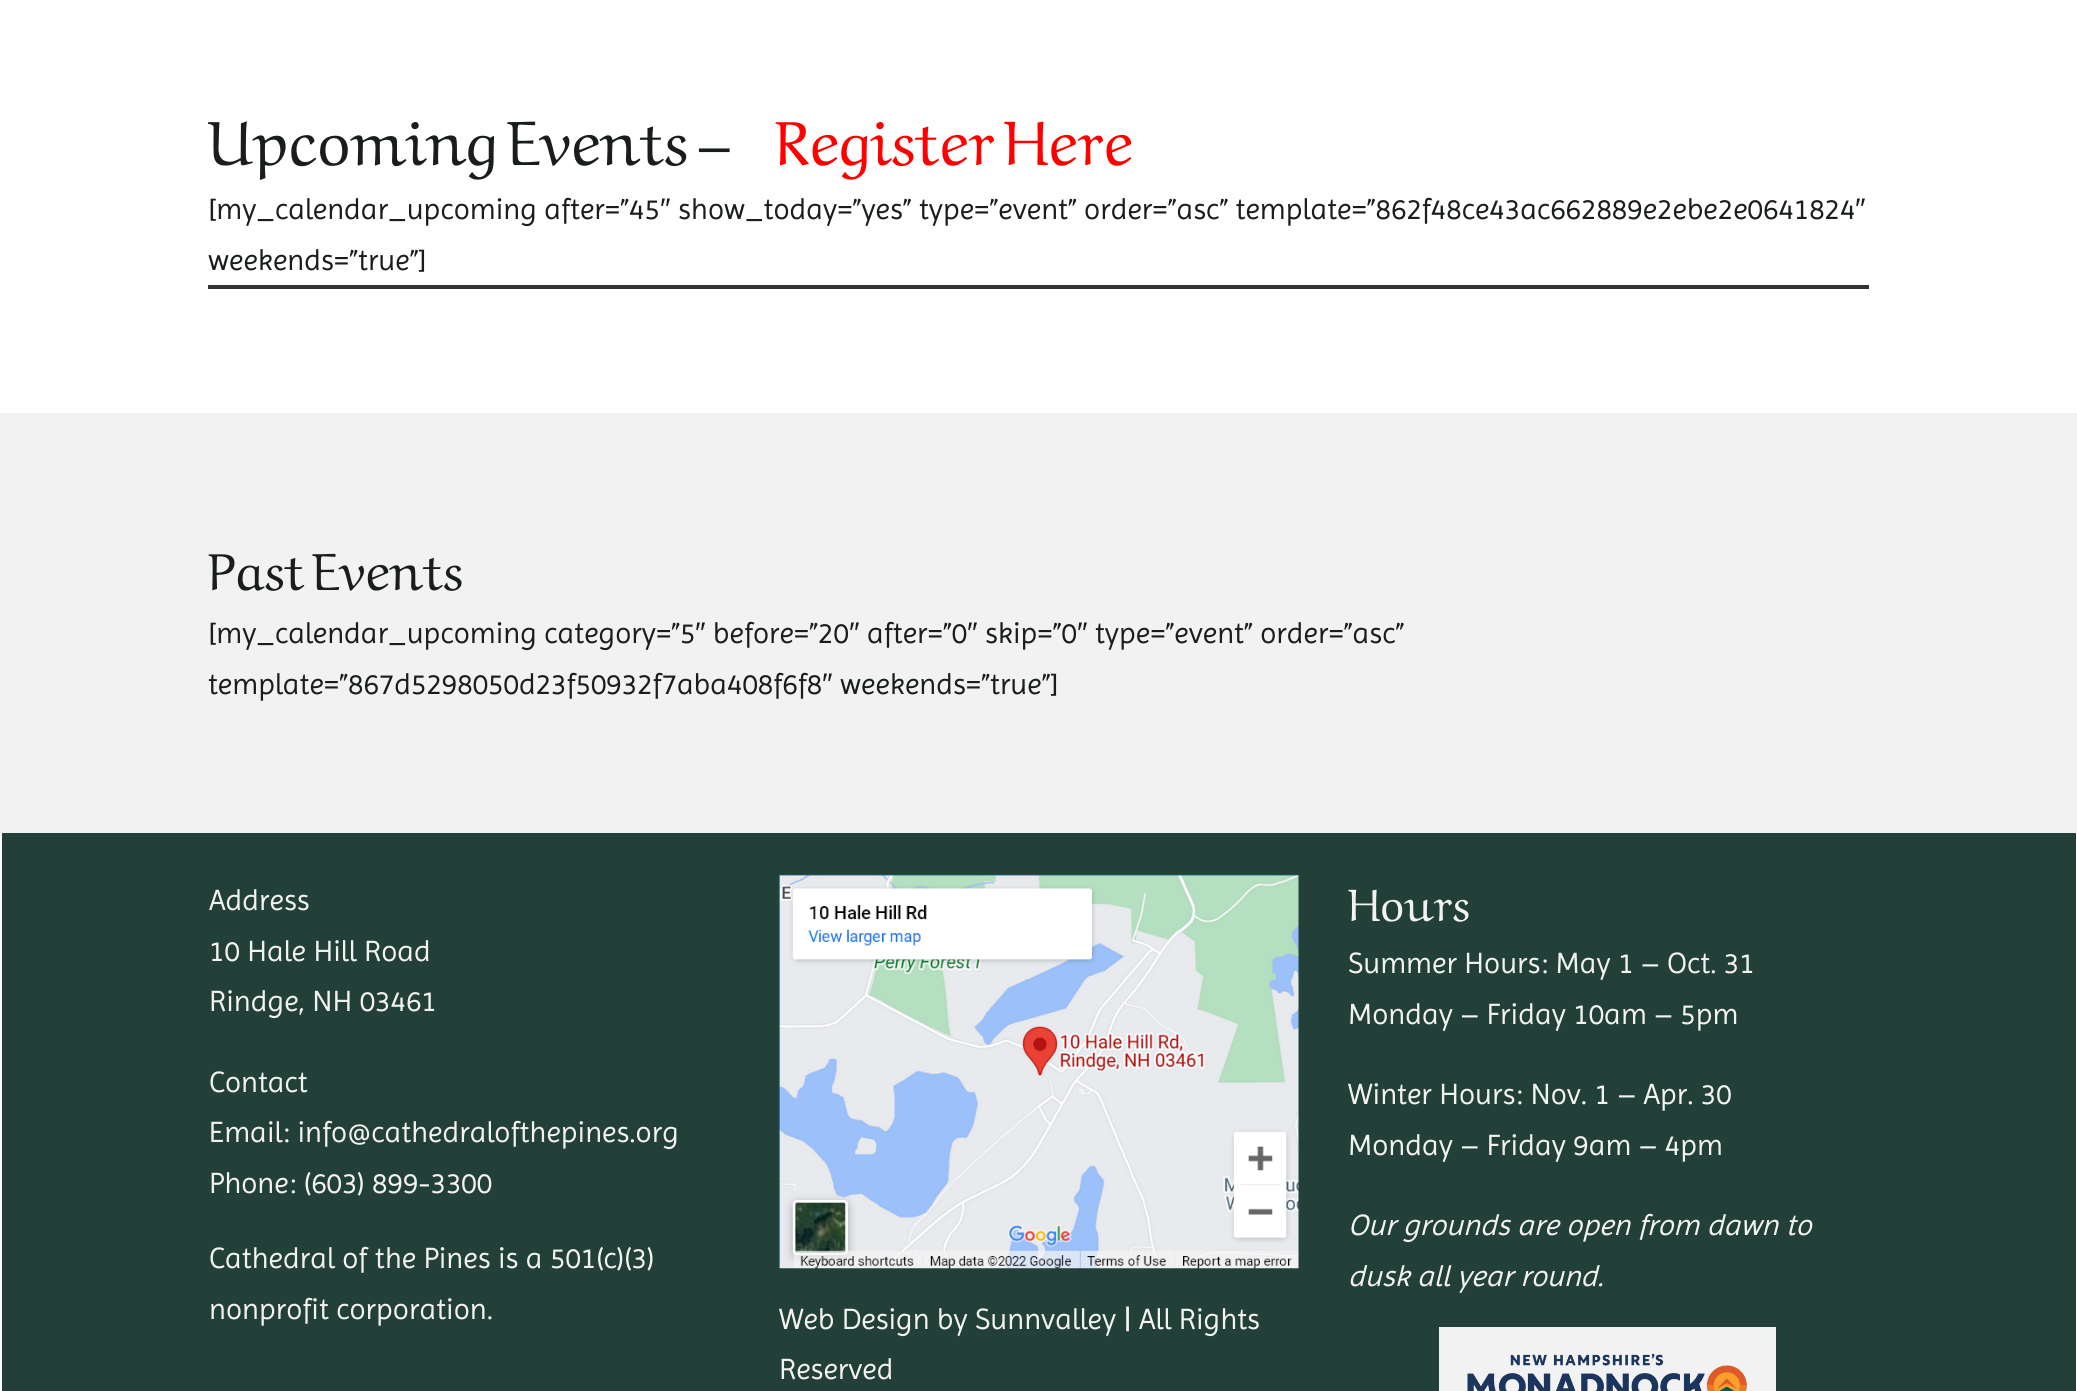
import math
import cairo


def paste(ctx, path, x, y, w, h):
	ctx.save()
	ctx.set_source_surface(cairo.ImageSurface.create_from_png(path), x, y)
	ctx.rectangle(x, y, w, h)
	ctx.fill()
	ctx.restore()

def draw(ctx):
	ctx.set_source_rgb(1, 1, 1)
	ctx.paint()
	ctx.set_source_rgb(0.2, 0.2, 0.2)
	ctx.rectangle(208, 285, 1661, 4)
	ctx.fill()
	ctx.select_font_face('Aref Ruqaa')
	ctx.set_font_size(63)
	ctx.set_source_rgb(0.098, 0.118, 0.106)
	ctx.move_to(208, 165)
	ctx.show_text('Upcoming Events –')
	ctx.set_source_rgb(1, 0, 0)
	ctx.move_to(775, 165)
	ctx.show_text('Register Here')
	ctx.select_font_face('Imprima')
	ctx.set_font_size(29.75)
	ctx.set_source_rgb(0.098, 0.118, 0.106)
	ctx.move_to(208, 219)
	ctx.show_text('[my_calendar_upcoming after=”45')
	ctx.select_font_face('Liberation Sans')
	ctx.move_to(660, 219)
	ctx.show_text('″')
	ctx.select_font_face('Imprima')
	ctx.move_to(678, 219)
	ctx.show_text('show_today=”yes” type=”event” order=”asc” template=”862f48ce43ac662889e2ebe2e0641824')
	ctx.select_font_face('Liberation Sans')
	ctx.move_to(1855, 219)
	ctx.show_text('″')
	ctx.select_font_face('Imprima')
	ctx.move_to(208, 270)
	ctx.show_text('weekends=”true”]')
	ctx.set_source_rgb(0.949, 0.949, 0.949)
	ctx.rectangle(0, 413, 2077, 420)
	ctx.fill()
	ctx.select_font_face('Aref Ruqaa')
	ctx.set_font_size(52.5)
	ctx.set_source_rgb(0.098, 0.118, 0.106)
	ctx.move_to(208, 590)
	ctx.show_text('Past Events')
	ctx.select_font_face('Imprima')
	ctx.set_font_size(29.75)
	ctx.move_to(208, 643)
	ctx.show_text('[my_calendar_upcoming category=”5')
	ctx.select_font_face('Liberation Sans')
	ctx.move_to(695, 643)
	ctx.show_text('″')
	ctx.select_font_face('Imprima')
	ctx.move_to(713, 643)
	ctx.show_text('before=”20')
	ctx.select_font_face('Liberation Sans')
	ctx.move_to(849, 643)
	ctx.show_text('″')
	ctx.select_font_face('Imprima')
	ctx.move_to(867, 643)
	ctx.show_text('after=”0')
	ctx.select_font_face('Liberation Sans')
	ctx.move_to(967, 643)
	ctx.show_text('″')
	ctx.select_font_face('Imprima')
	ctx.move_to(985, 643)
	ctx.show_text('skip=”0')
	ctx.select_font_face('Liberation Sans')
	ctx.move_to(1077, 643)
	ctx.show_text('″')
	ctx.select_font_face('Imprima')
	ctx.move_to(1095, 643)
	ctx.show_text('type=”event” order=”asc”')
	ctx.move_to(208, 694)
	ctx.show_text('template=”867d5298050d23f50932f7aba408f6f8')
	ctx.select_font_face('Liberation Sans')
	ctx.move_to(822, 694)
	ctx.show_text('″')
	ctx.select_font_face('Imprima')
	ctx.move_to(840, 694)
	ctx.show_text('weekends=”true”]')
	ctx.set_source_rgb(0.137, 0.251, 0.22)
	ctx.rectangle(2, 833, 2074, 558)
	ctx.fill()
	ctx.set_source_rgb(0.949, 0.949, 0.949)
	for x, y, s in [
		(209, 910, 'Address'),
		(209, 961, '10 Hale Hill Road'),
		(209, 1011, 'Rindge, NH 03461'),
		(209, 1092, 'Contact'),
		(209, 1142, 'Email: info@cathedralofthepines.org'),
		(209, 1193, 'Phone: (603) 899-3300'),
		(209, 1268, 'Cathedral of the Pines is a 501(c)(3)'),
		(209, 1319, 'nonprofit corporation.'),
	]:
		ctx.move_to(x, y)
		ctx.show_text(s)
	ctx.select_font_face('Aref Ruqaa')
	ctx.set_font_size(45.5)
	ctx.move_to(1348, 921)
	ctx.show_text('Hours')
	ctx.select_font_face('Imprima')
	ctx.set_font_size(29.75)
	for x, y, s in [
		(1348, 973, 'Summer Hours: May 1 – Oct. 31'),
		(1348, 1024, 'Monday – Friday 10am – 5pm'),
		(1348, 1104, 'Winter Hours: Nov. 1 – Apr. 30'),
		(1348, 1155, 'Monday – Friday 9am – 4pm'),
	]:
		ctx.move_to(x, y)
		ctx.show_text(s)
	ctx.select_font_face('Imprima', cairo.FONT_SLANT_ITALIC)
	ctx.move_to(1348, 1235)
	ctx.show_text('Our grounds are open from dawn to')
	ctx.move_to(1348, 1286)
	ctx.show_text('dusk all year round.')
	ctx.rectangle(1439, 1327, 337, 64)
	ctx.fill()
	paste(ctx, 'media/1.png', 1467, 1353, 280, 38)
	paste(ctx, 'media/2.png', 778, 874, 521, 395)
	ctx.select_font_face('Imprima')
	ctx.move_to(779, 1329)
	ctx.show_text('Web Design by Sunnvalley | All Rights')
	ctx.move_to(779, 1379)
	ctx.show_text('Reserved')


surface = cairo.ImageSurface(cairo.FORMAT_RGB24, 2077, 1391)
ctx = cairo.Context(surface)
options = cairo.FontOptions()
options.set_hint_metrics(cairo.HINT_METRICS_OFF)
options.set_hint_style(cairo.HINT_STYLE_NONE)
ctx.set_font_options(options)
ctx.set_miter_limit(4)
draw(ctx)
surface.write_to_png('image.png')
